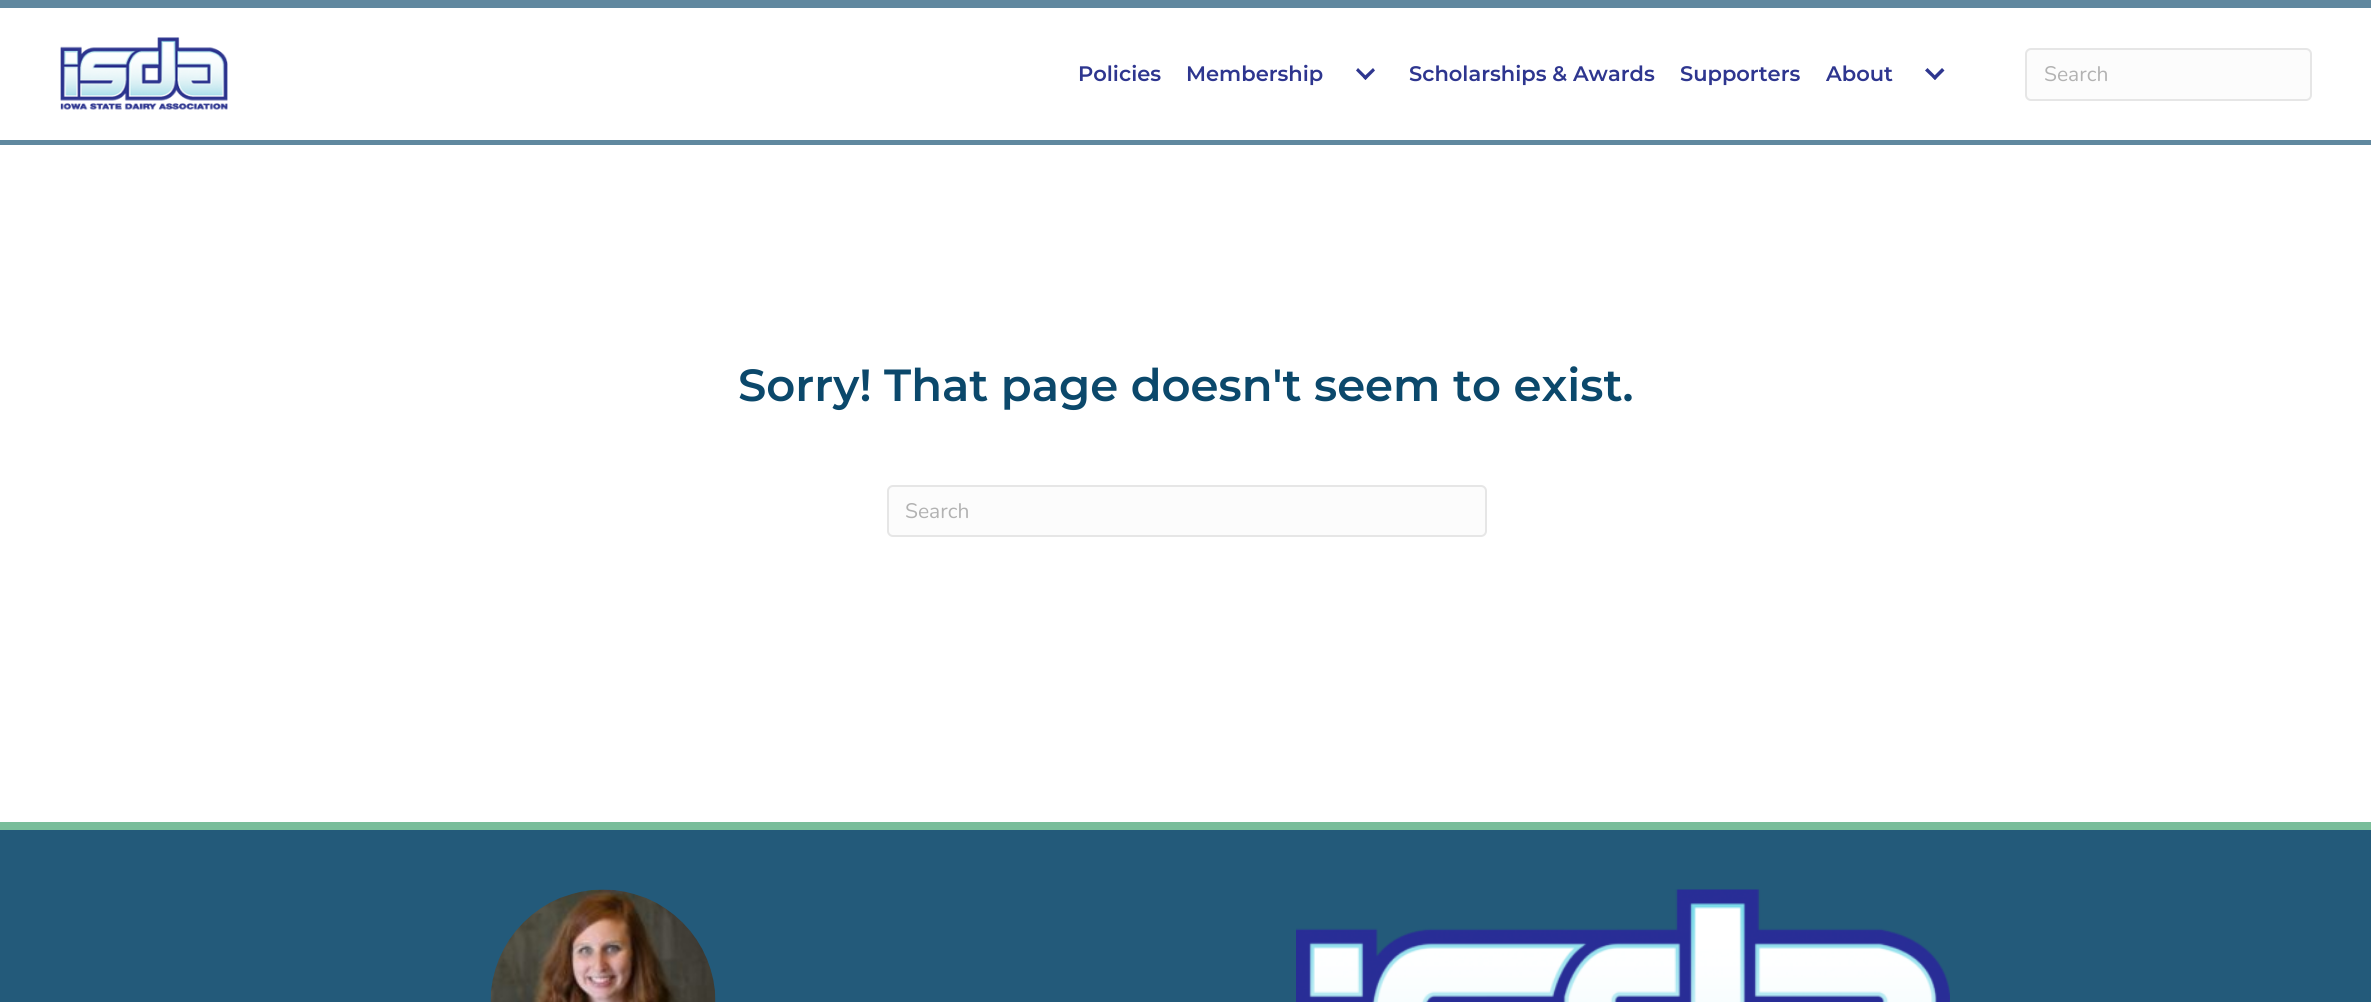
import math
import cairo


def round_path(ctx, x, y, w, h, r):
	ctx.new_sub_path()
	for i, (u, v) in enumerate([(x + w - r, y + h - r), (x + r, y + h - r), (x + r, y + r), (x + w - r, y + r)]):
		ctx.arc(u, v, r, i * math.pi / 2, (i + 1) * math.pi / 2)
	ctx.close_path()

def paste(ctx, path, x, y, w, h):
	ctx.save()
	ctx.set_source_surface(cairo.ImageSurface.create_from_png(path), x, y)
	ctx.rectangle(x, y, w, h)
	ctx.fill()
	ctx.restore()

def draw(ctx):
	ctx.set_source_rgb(1, 1, 1)
	ctx.paint()
	ctx.set_source_rgb(0.376, 0.533, 0.624)
	ctx.rectangle(0, 0, 2371, 8)
	ctx.fill()
	ctx.rectangle(0, 140, 2371, 5)
	ctx.fill()
	paste(ctx, 'media/1.png', 60, 37, 168, 73)
	ctx.select_font_face('Montserrat Thin')
	ctx.set_font_size(21)
	ctx.set_source_rgb(0.18, 0.212, 0.561)
	ctx.move_to(1078, 81)
	ctx.show_text('Policies')
	ctx.move_to(1186, 81)
	ctx.show_text('Membership')
	ctx.new_path()
	ctx.move_to(1373, 68)
	ctx.line_to(1375, 70.5)
	ctx.line_to(1365.5, 80)
	ctx.line_to(1363, 77.5)
	ctx.close_path()
	ctx.fill()
	ctx.new_path()
	ctx.move_to(1358, 68)
	ctx.line_to(1367.5, 77.5)
	ctx.line_to(1365.5, 80)
	ctx.line_to(1356, 70.5)
	ctx.close_path()
	ctx.fill()
	for x, y, s in [
		(1409, 81, 'Scholarships & Awards'),
		(1680, 81, 'Supporters'),
		(1826, 81, 'About'),
	]:
		ctx.move_to(x, y)
		ctx.show_text(s)
	ctx.new_path()
	ctx.move_to(1942, 68)
	ctx.line_to(1944.5, 70.5)
	ctx.line_to(1935, 80)
	ctx.line_to(1932.5, 77.5)
	ctx.close_path()
	ctx.fill()
	ctx.new_path()
	ctx.move_to(1927.5, 68)
	ctx.line_to(1937, 77.5)
	ctx.line_to(1935, 80)
	ctx.line_to(1925, 70.5)
	ctx.close_path()
	ctx.fill()
	ctx.set_source_rgb(0.988, 0.988, 0.988)
	round_path(ctx, 2026, 49, 285, 51, 5)
	ctx.fill_preserve()
	ctx.set_source_rgb(0.902, 0.902, 0.902)
	ctx.stroke()
	ctx.select_font_face('Nunito')
	ctx.set_source_rgb(0.698, 0.698, 0.698)
	ctx.move_to(2044, 81)
	ctx.show_text('Search')
	ctx.select_font_face('Montserrat Thin')
	ctx.set_font_size(45)
	ctx.set_source_rgb(0.043, 0.282, 0.42)
	ctx.move_to(738, 401)
	ctx.show_text('Sorry! That page doesn\'t seem to exist.')
	ctx.set_source_rgb(0.988, 0.988, 0.988)
	round_path(ctx, 888, 486, 598, 50, 5)
	ctx.fill_preserve()
	ctx.set_source_rgb(0.902, 0.902, 0.902)
	ctx.stroke()
	ctx.select_font_face('Nunito')
	ctx.set_font_size(21)
	ctx.set_source_rgb(0.698, 0.698, 0.698)
	ctx.move_to(905, 518)
	ctx.show_text('Search')
	ctx.set_source_rgb(0.137, 0.353, 0.478)
	ctx.rectangle(0, 830, 2371, 172)
	ctx.fill()
	ctx.set_source_rgb(0.475, 0.741, 0.604)
	ctx.rectangle(0, 822, 2371, 8)
	ctx.fill()
	paste(ctx, 'media/2.png', 490, 889, 226, 113)
	paste(ctx, 'media/3.png', 1296, 889, 654, 113)


surface = cairo.ImageSurface(cairo.FORMAT_RGB24, 2371, 1002)
ctx = cairo.Context(surface)
options = cairo.FontOptions()
options.set_hint_metrics(cairo.HINT_METRICS_OFF)
options.set_hint_style(cairo.HINT_STYLE_NONE)
ctx.set_font_options(options)
ctx.set_miter_limit(4)
draw(ctx)
surface.write_to_png('image.png')
